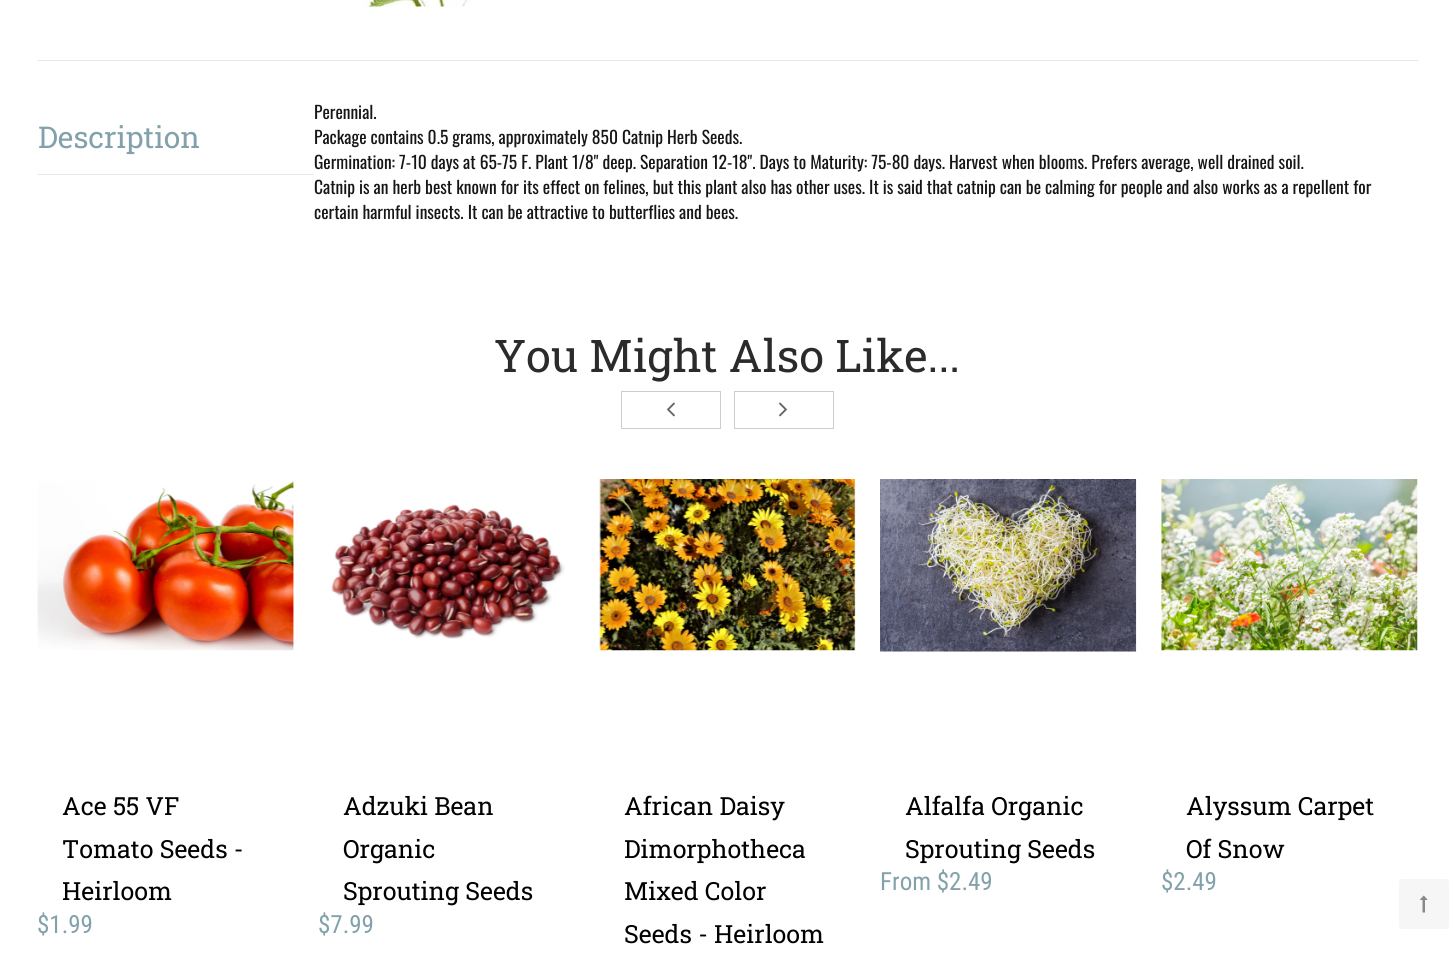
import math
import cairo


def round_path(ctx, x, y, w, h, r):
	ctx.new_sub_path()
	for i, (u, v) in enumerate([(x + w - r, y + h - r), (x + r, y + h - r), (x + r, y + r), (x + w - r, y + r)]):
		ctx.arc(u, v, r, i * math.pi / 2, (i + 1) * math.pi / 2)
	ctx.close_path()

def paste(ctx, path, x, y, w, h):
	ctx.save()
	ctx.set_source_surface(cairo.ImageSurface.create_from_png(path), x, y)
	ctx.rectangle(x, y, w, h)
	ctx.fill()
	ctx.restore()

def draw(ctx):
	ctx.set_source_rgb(1, 1, 1)
	ctx.paint()
	paste(ctx, 'media/1.png', 361, 0, 110, 7)
	ctx.set_source_rgb(0.902, 0.902, 0.902)
	ctx.rectangle(38, 60, 1380, 1)
	ctx.fill()
	ctx.rectangle(38, 174, 276, 1)
	ctx.fill()
	ctx.select_font_face('Roboto Slab')
	ctx.set_font_size(30)
	ctx.set_source_rgb(0.51, 0.631, 0.667)
	ctx.move_to(38, 148)
	ctx.show_text('Description')
	ctx.select_font_face('Oswald')
	ctx.set_font_size(17.5)
	ctx.set_source_rgb(0.086, 0.086, 0.086)
	for x, y, s in [
		(314, 119, 'Perennial.'),
		(314, 144, 'Package contains 0.5 grams, approximately 850 Catnip Herb Seeds.'),
		(314, 169, 'Germination: 7-10 days at 65-75 F. Plant 1/8" deep. Separation 12-18". Days to Maturity: 75-80 days. Harvest when blooms. Prefers average, well drained soil.'),
		(314, 194, 'Catnip is an herb best known for its effect on felines, but this plant also has other uses. It is said that catnip can be calming for people and also works as a repellent for'),
		(314, 219, 'certain harmful insects. It can be attractive to butterflies and bees.'),
	]:
		ctx.move_to(x, y)
		ctx.show_text(s)
	ctx.select_font_face('Roboto Slab')
	ctx.set_font_size(45)
	ctx.set_source_rgb(0.169, 0.169, 0.169)
	ctx.move_to(494, 372)
	ctx.show_text('You Might Also Like...')
	ctx.rectangle(621.5, 391.5, 99, 37)
	ctx.set_source_rgb(0.804, 0.804, 0.804)
	ctx.set_line_width(1)
	ctx.stroke()
	paste(ctx, 'media/2.png', 666, 402, 9, 15)
	ctx.rectangle(734.5, 391.5, 99, 37)
	ctx.stroke()
	paste(ctx, 'media/3.png', 779, 402, 8, 15)
	paste(ctx, 'media/4.png', 37, 481, 257, 170)
	ctx.set_font_size(25)
	ctx.set_source_rgb(0, 0, 0)
	for x, y, s in [
		(62, 815, 'Ace 55 VF'),
		(62, 858, 'Tomato Seeds -'),
		(62, 900, 'Heirloom'),
	]:
		ctx.move_to(x, y)
		ctx.show_text(s)
	ctx.select_font_face('Roboto Condensed')
	ctx.set_source_rgb(0.51, 0.631, 0.667)
	ctx.move_to(37, 933)
	ctx.show_text('$1.99')
	paste(ctx, 'media/5.png', 331, 504, 234, 135)
	ctx.select_font_face('Roboto Slab')
	ctx.set_source_rgb(0, 0, 0)
	for x, y, s in [
		(343, 815, 'Adzuki Bean'),
		(343, 858, 'Organic'),
		(343, 900, 'Sprouting Seeds'),
	]:
		ctx.move_to(x, y)
		ctx.show_text(s)
	ctx.select_font_face('Roboto Condensed')
	ctx.set_source_rgb(0.51, 0.631, 0.667)
	ctx.move_to(318, 933)
	ctx.show_text('$7.99')
	paste(ctx, 'media/6.png', 599, 479, 257, 172)
	ctx.select_font_face('Roboto Slab')
	ctx.set_source_rgb(0, 0, 0)
	for x, y, s in [
		(624, 815, 'African Daisy'),
		(624, 858, 'Dimorphotheca'),
		(624, 900, 'Mixed Color'),
		(624, 943, 'Seeds - Heirloom'),
	]:
		ctx.move_to(x, y)
		ctx.show_text(s)
	paste(ctx, 'media/7.png', 880, 479, 257, 173)
	ctx.move_to(905, 815)
	ctx.show_text('Alfalfa Organic')
	ctx.move_to(905, 858)
	ctx.show_text('Sprouting Seeds')
	ctx.select_font_face('Roboto Condensed')
	ctx.set_source_rgb(0.51, 0.631, 0.667)
	ctx.move_to(880, 890)
	ctx.show_text('From $2.49')
	paste(ctx, 'media/8.png', 1161, 479, 257, 172)
	ctx.select_font_face('Roboto Slab')
	ctx.set_source_rgb(0, 0, 0)
	ctx.move_to(1186, 815)
	ctx.show_text('Alyssum Carpet')
	ctx.move_to(1186, 858)
	ctx.show_text('Of Snow')
	ctx.select_font_face('Roboto Condensed')
	ctx.set_source_rgb(0.51, 0.631, 0.667)
	ctx.move_to(1161, 890)
	ctx.show_text('$2.49')
	ctx.set_source_rgb(0.961, 0.961, 0.961)
	round_path(ctx, 1399, 879, 50, 50, 2.5)
	ctx.fill()
	paste(ctx, 'media/9.png', 1420, 895, 8, 18)


surface = cairo.ImageSurface(cairo.FORMAT_RGB24, 1454, 966)
ctx = cairo.Context(surface)
options = cairo.FontOptions()
options.set_hint_metrics(cairo.HINT_METRICS_OFF)
options.set_hint_style(cairo.HINT_STYLE_NONE)
ctx.set_font_options(options)
ctx.set_miter_limit(4)
draw(ctx)
surface.write_to_png('image.png')
